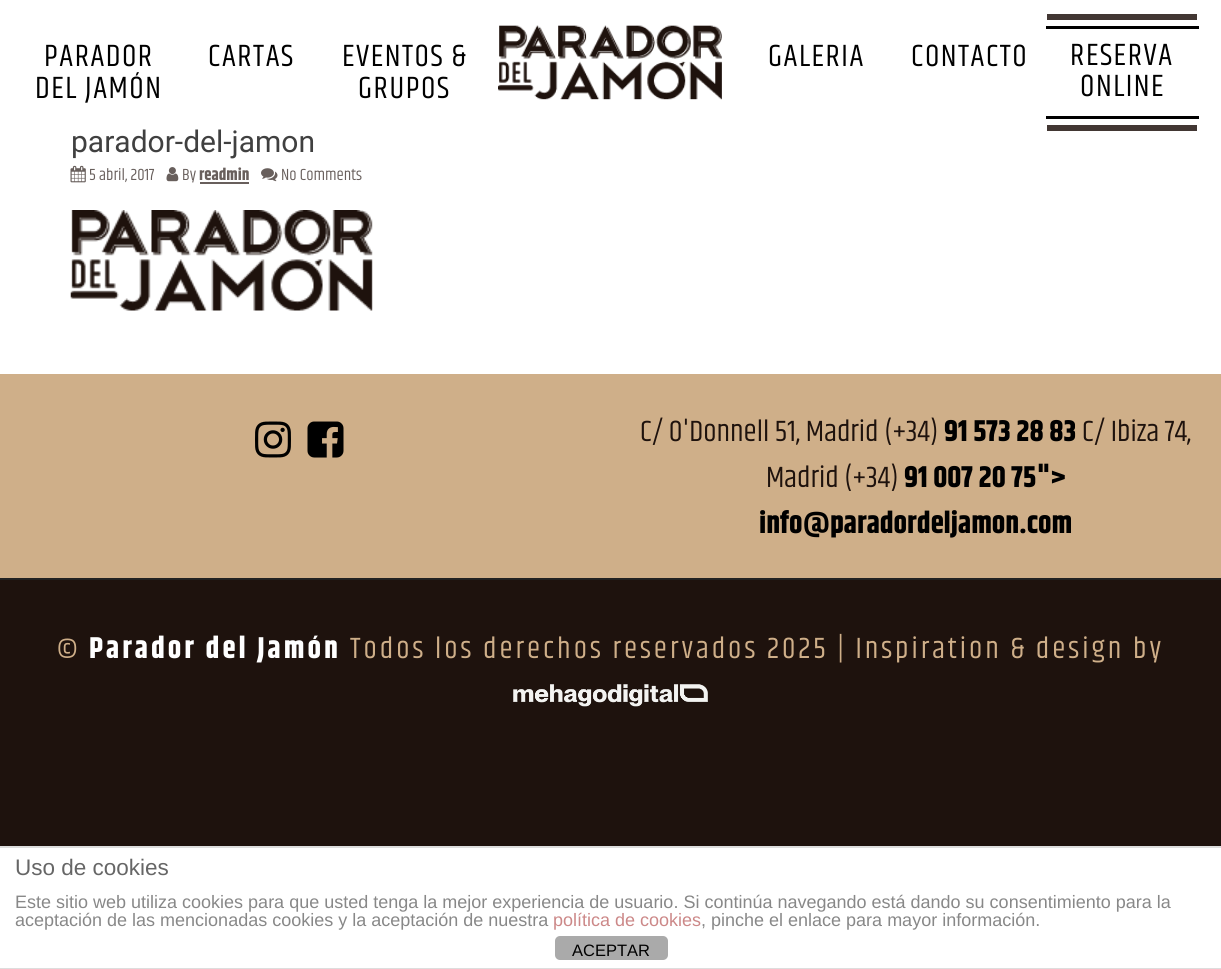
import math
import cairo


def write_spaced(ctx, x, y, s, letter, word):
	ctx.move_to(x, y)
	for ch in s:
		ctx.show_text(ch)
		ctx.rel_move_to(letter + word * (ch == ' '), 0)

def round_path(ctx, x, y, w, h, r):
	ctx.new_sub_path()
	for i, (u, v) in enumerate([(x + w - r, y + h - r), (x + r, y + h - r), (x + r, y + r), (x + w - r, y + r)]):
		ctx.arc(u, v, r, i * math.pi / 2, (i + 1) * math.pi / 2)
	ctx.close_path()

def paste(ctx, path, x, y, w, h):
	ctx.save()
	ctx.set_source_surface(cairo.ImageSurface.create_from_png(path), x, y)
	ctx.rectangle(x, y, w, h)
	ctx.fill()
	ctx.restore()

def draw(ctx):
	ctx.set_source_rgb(0.118, 0.071, 0.051)
	ctx.paint()
	ctx.set_source_rgb(1, 1, 1)
	ctx.rectangle(0, 0, 1221, 374)
	ctx.fill()
	paste(ctx, 'media/1.png', 498, 25, 224, 75)
	ctx.select_font_face('Khand')
	ctx.set_font_size(31.5)
	ctx.set_source_rgb(0, 0, 0)
	for x, y, s in [
		(44, 66, 'PARADOR'),
		(35, 98, 'DEL JAMÓN'),
		(208, 66, 'CARTAS'),
		(342, 66, 'EVENTOS &'),
		(358, 98, 'GRUPOS'),
		(768, 66, 'GALERIA'),
		(911, 66, 'CONTACTO'),
	]:
		write_spaced(ctx, x, y, s, 1.5, 0)
	ctx.set_source_rgb(0.259, 0.216, 0.2)
	ctx.rectangle(1047, 14, 150, 6)
	ctx.rectangle(1047, 125, 150, 6)
	ctx.fill()
	ctx.set_source_rgb(0, 0, 0)
	ctx.rectangle(1046, 26, 153, 3)
	ctx.rectangle(1046, 116, 153, 3)
	ctx.fill()
	write_spaced(ctx, 1070, 65, 'RESERVA', 1.5, 0)
	write_spaced(ctx, 1080, 96, 'ONLINE', 1.5, 0)
	ctx.select_font_face('Roboto')
	ctx.set_font_size(30)
	ctx.set_source_rgb(0.251, 0.251, 0.251)
	ctx.move_to(71, 152)
	ctx.show_text('parador-del-jamon')
	paste(ctx, 'media/2.png', 70, 165, 16, 18)
	ctx.select_font_face('Khand')
	ctx.set_font_size(16.5)
	ctx.set_source_rgb(0.408, 0.373, 0.361)
	ctx.move_to(89, 180)
	ctx.show_text('5 abril, 2017')
	paste(ctx, 'media/3.png', 166, 167, 13, 15)
	ctx.move_to(182, 180)
	ctx.show_text('By')
	ctx.select_font_face('Khand', cairo.FONT_SLANT_NORMAL, cairo.FONT_WEIGHT_BOLD)
	ctx.move_to(199, 180)
	ctx.show_text('readmin')
	ctx.rectangle(200, 182, 49, 2)
	ctx.fill()
	paste(ctx, 'media/4.png', 261, 168, 17, 14)
	ctx.select_font_face('Khand')
	ctx.move_to(281, 180)
	ctx.show_text('No Comments')
	paste(ctx, 'media/5.png', 70, 210, 303, 101)
	ctx.set_source_rgb(0.812, 0.686, 0.537)
	ctx.rectangle(0, 374, 1221, 204)
	ctx.fill()
	paste(ctx, 'media/6.png', 255, 421, 36, 37)
	paste(ctx, 'media/7.png', 307, 421, 37, 37)
	ctx.set_font_size(30)
	ctx.set_source_rgb(0.118, 0.071, 0.051)
	ctx.move_to(640, 441)
	ctx.show_text('C/ O\'Donnell 51, Madrid (+34)')
	ctx.select_font_face('Khand', cairo.FONT_SLANT_NORMAL, cairo.FONT_WEIGHT_BOLD)
	ctx.set_source_rgb(0, 0, 0)
	ctx.move_to(944, 441)
	ctx.show_text('91 573 28 83')
	ctx.select_font_face('Khand')
	ctx.set_source_rgb(0.118, 0.071, 0.051)
	ctx.move_to(1082, 441)
	ctx.show_text('C/ Ibiza 74,')
	ctx.move_to(766, 487)
	ctx.show_text('Madrid (+34)')
	ctx.select_font_face('Khand', cairo.FONT_SLANT_NORMAL, cairo.FONT_WEIGHT_BOLD)
	ctx.set_source_rgb(0, 0, 0)
	ctx.move_to(904, 487)
	ctx.show_text('91 007 20 75">')
	ctx.move_to(759, 533)
	ctx.show_text('info@paradordeljamon.com')
	ctx.set_source_rgb(0.133, 0.133, 0.133)
	ctx.rectangle(0, 578, 1221, 2)
	ctx.fill()
	ctx.select_font_face('Khand')
	ctx.set_source_rgb(0.812, 0.686, 0.537)
	write_spaced(ctx, 57, 658, '©', 3, 0)
	ctx.select_font_face('Khand', cairo.FONT_SLANT_NORMAL, cairo.FONT_WEIGHT_BOLD)
	ctx.set_source_rgb(1, 1, 1)
	write_spaced(ctx, 89, 658, 'Parador del Jamón', 3, 0)
	ctx.select_font_face('Khand')
	ctx.set_source_rgb(0.812, 0.686, 0.537)
	write_spaced(ctx, 350, 658, 'Todos los derechos reservados 2025 | Inspiration & design by', 3, 0)
	paste(ctx, 'media/8.png', 513, 684, 195, 23)
	ctx.set_source_rgb(1, 1, 1)
	ctx.rectangle(0, 848, 1221, 120)
	ctx.fill()
	ctx.set_source_rgb(0.867, 0.867, 0.867)
	ctx.rectangle(0, 846, 1221, 2)
	ctx.rectangle(0, 968, 1221, 1)
	ctx.fill()
	ctx.select_font_face('Liberation Sans')
	ctx.set_font_size(22.5)
	ctx.set_source_rgb(0.4, 0.4, 0.4)
	ctx.move_to(15, 875)
	ctx.show_text('Uso de cookies')
	ctx.set_font_size(18)
	ctx.set_source_rgb(0.533, 0.533, 0.533)
	ctx.move_to(15, 908)
	ctx.show_text('Este sitio web utiliza cookies para que usted tenga la mejor experiencia de usuario. Si continúa navegando está dando su consentimiento para la')
	ctx.move_to(15, 926)
	ctx.show_text('aceptación de las mencionadas cookies y la aceptación de nuestra')
	ctx.set_source_rgb(0.8, 0.533, 0.533)
	ctx.move_to(553, 926)
	ctx.show_text('política de cookies')
	ctx.set_source_rgb(0.533, 0.533, 0.533)
	ctx.move_to(701, 926)
	ctx.show_text(', pinche el enlace para mayor información.')
	ctx.set_source_rgb(0.667, 0.667, 0.667)
	round_path(ctx, 555, 936, 113, 24, 5)
	ctx.fill()
	ctx.set_font_size(16.5)
	ctx.set_source_rgb(0, 0, 0)
	ctx.move_to(572, 956)
	ctx.show_text('ACEPTAR')


surface = cairo.ImageSurface(cairo.FORMAT_RGB24, 1221, 969)
ctx = cairo.Context(surface)
options = cairo.FontOptions()
options.set_hint_metrics(cairo.HINT_METRICS_OFF)
options.set_hint_style(cairo.HINT_STYLE_NONE)
ctx.set_font_options(options)
ctx.set_miter_limit(4)
draw(ctx)
surface.write_to_png('image.png')
